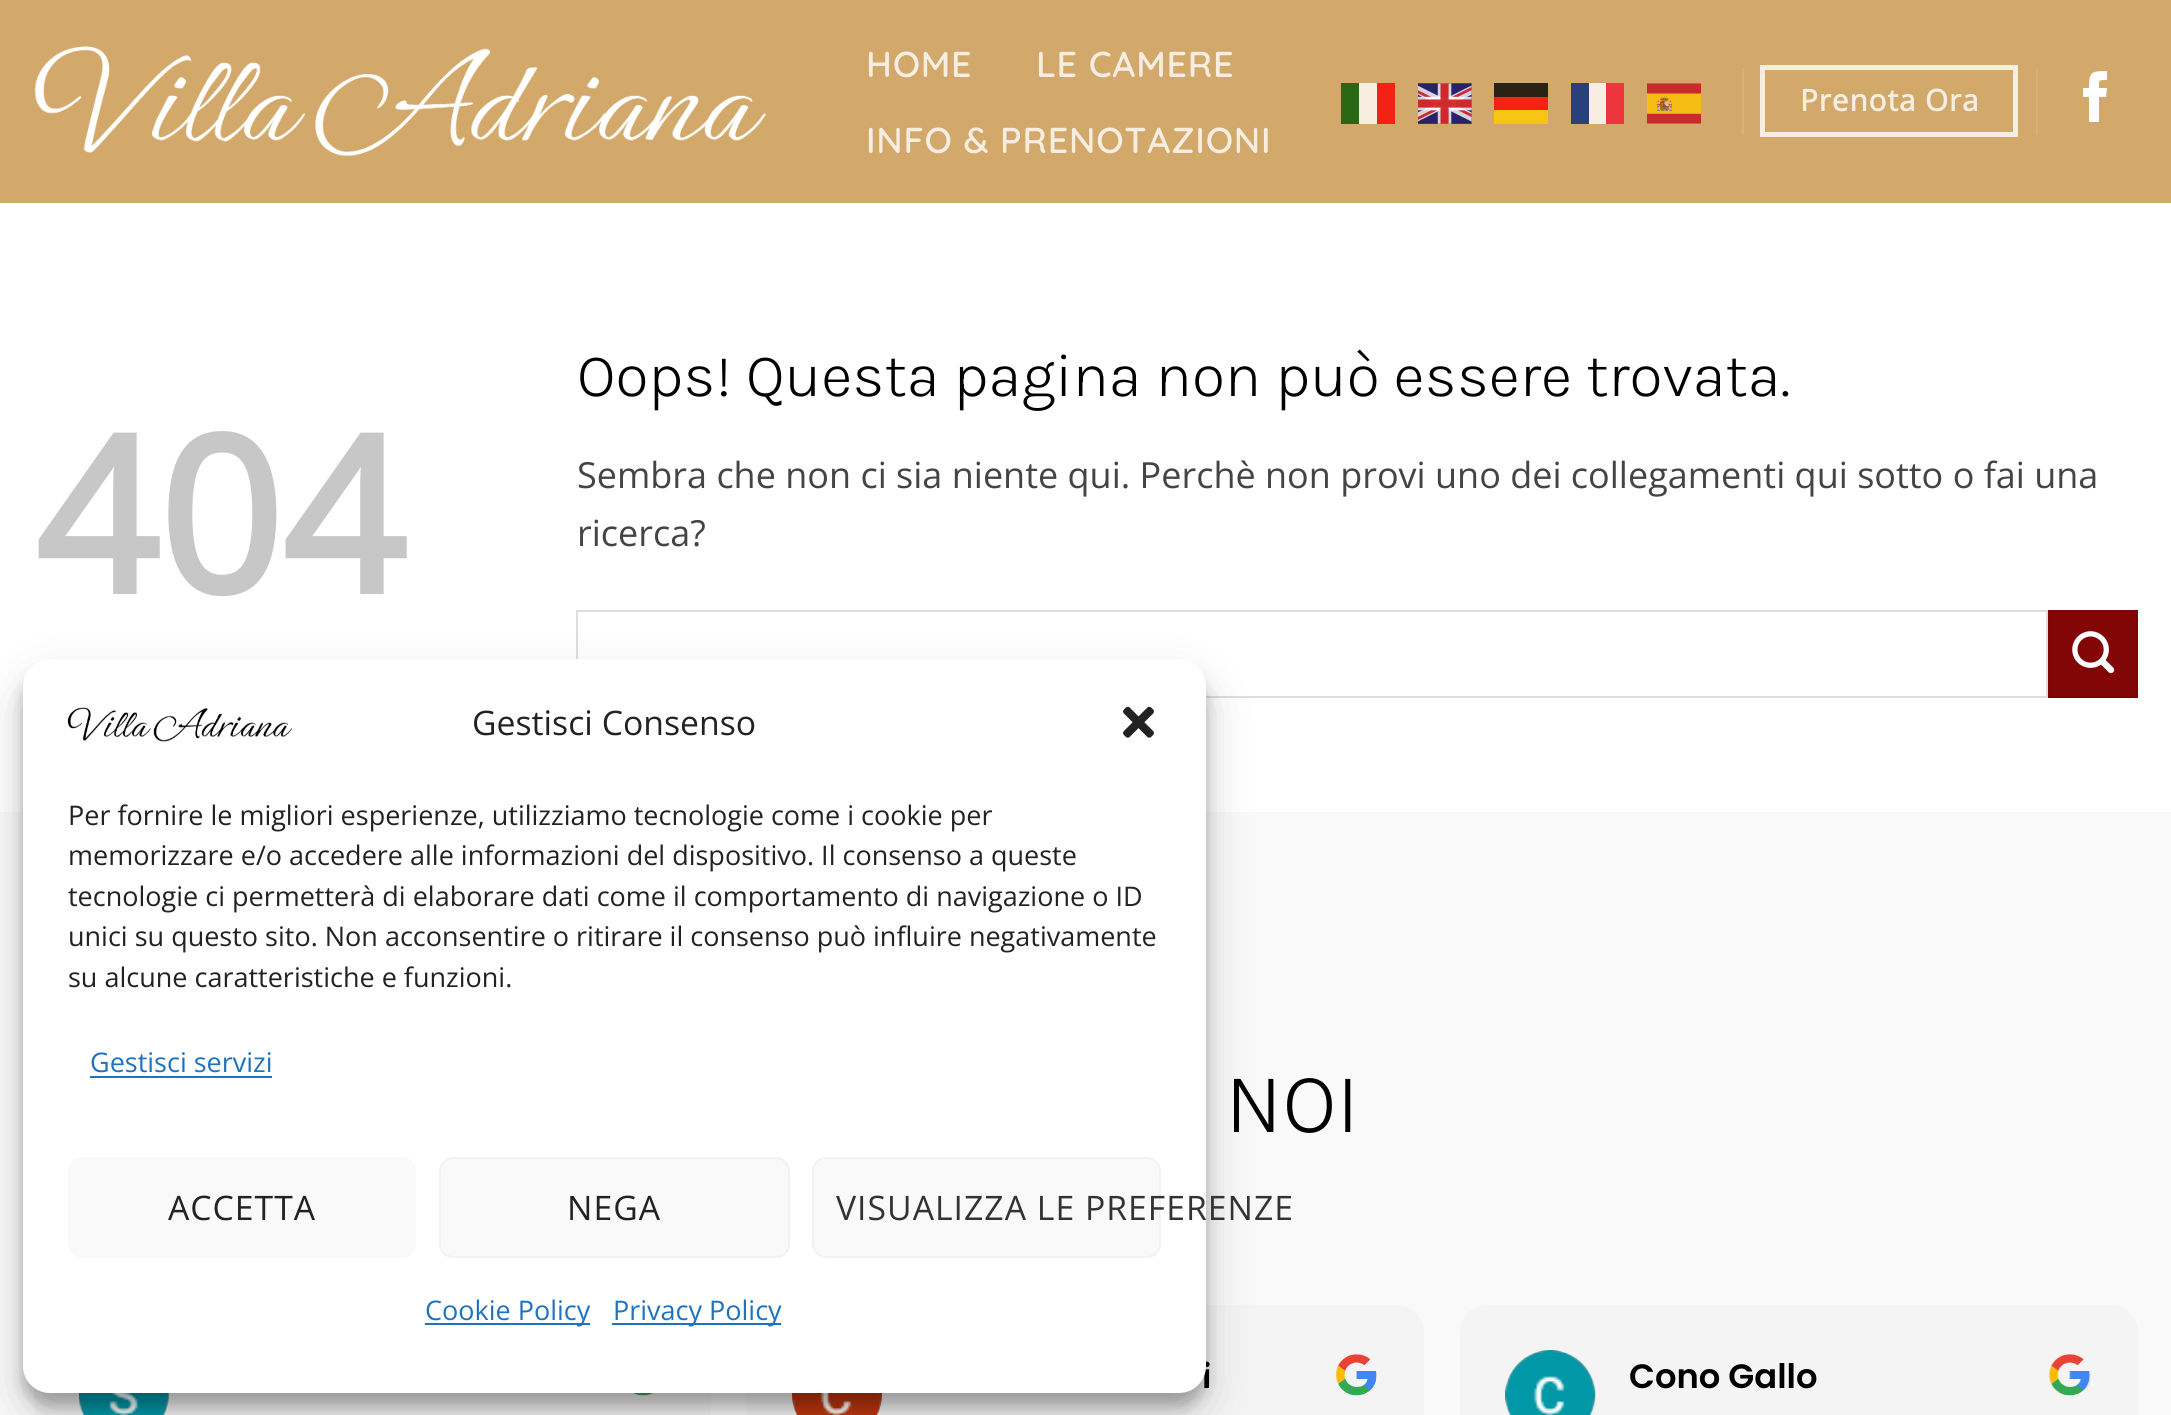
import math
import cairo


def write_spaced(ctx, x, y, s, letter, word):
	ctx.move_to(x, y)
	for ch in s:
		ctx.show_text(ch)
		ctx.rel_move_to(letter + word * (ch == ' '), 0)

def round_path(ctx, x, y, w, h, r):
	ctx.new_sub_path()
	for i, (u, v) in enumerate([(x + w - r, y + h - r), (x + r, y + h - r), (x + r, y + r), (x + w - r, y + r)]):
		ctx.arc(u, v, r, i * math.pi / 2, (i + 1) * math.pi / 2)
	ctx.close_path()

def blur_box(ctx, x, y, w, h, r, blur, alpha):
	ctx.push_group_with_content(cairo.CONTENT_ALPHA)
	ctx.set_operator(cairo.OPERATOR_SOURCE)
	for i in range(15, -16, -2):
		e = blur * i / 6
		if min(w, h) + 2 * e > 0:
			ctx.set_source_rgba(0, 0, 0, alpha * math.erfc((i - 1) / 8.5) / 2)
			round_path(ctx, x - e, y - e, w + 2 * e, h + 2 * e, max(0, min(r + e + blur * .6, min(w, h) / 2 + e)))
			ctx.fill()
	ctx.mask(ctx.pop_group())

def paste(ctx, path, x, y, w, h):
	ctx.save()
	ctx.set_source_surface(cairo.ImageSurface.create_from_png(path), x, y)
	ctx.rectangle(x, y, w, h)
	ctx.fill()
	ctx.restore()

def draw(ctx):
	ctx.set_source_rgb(1, 1, 1)
	ctx.paint()
	ctx.set_source_rgb(0.824, 0.663, 0.42)
	ctx.rectangle(0, 0, 2171, 203)
	ctx.fill()
	paste(ctx, 'media/1.png', 34, 46, 732, 111)
	ctx.select_font_face('Quicksand SemiBold')
	ctx.set_font_size(36)
	ctx.set_source_rgb(0.965, 0.933, 0.882)
	for x, y, s in [
		(866, 77, 'HOME'),
		(1036, 77, 'LE CAMERE'),
		(866, 153, 'INFO & PRENOTAZIONI'),
	]:
		write_spaced(ctx, x, y, s, 0.75, 0)
	ctx.set_source_rgb(0.165, 0.404, 0.082)
	ctx.rectangle(1341, 83, 18, 41)
	ctx.fill()
	ctx.set_source_rgb(0.965, 0.933, 0.882)
	ctx.rectangle(1359, 83, 18, 41)
	ctx.fill()
	ctx.set_source_rgb(0.957, 0.133, 0.082)
	ctx.rectangle(1377, 83, 18, 41)
	ctx.fill()
	paste(ctx, 'media/2.png', 1418, 83, 54, 41)
	ctx.set_source_rgb(0.165, 0.133, 0.082)
	ctx.rectangle(1494, 83, 54, 14)
	ctx.fill()
	ctx.set_source_rgb(0.165, 0.251, 0.482)
	ctx.rectangle(1571, 83, 18, 41)
	ctx.fill()
	ctx.set_source_rgb(0.965, 0.933, 0.882)
	ctx.rectangle(1589, 83, 17, 41)
	ctx.fill()
	ctx.set_source_rgb(0.925, 0.208, 0.235)
	ctx.rectangle(1606, 83, 18, 41)
	ctx.fill()
	paste(ctx, 'media/3.png', 1647, 83, 54, 41)
	ctx.set_source_rgb(0.965, 0.133, 0.082)
	ctx.rectangle(1494, 97, 54, 13)
	ctx.fill()
	ctx.set_source_rgb(0.965, 0.773, 0.082)
	ctx.rectangle(1494, 110, 54, 14)
	ctx.fill()
	ctx.set_source_rgb(0.843, 0.698, 0.478)
	ctx.rectangle(1742, 68, 2, 67)
	ctx.fill()
	ctx.rectangle(1762.5, 67.5, 253, 67)
	ctx.set_source_rgb(0.965, 0.933, 0.882)
	ctx.set_line_width(5)
	ctx.stroke()
	ctx.select_font_face('Open Sans', cairo.FONT_SLANT_NORMAL, cairo.FONT_WEIGHT_BOLD)
	ctx.set_font_size(29.75)
	write_spaced(ctx, 1800, 111, 'Prenota Ora', 0.9, 0)
	ctx.set_source_rgb(0.843, 0.698, 0.478)
	ctx.rectangle(2036, 68, 2, 67)
	ctx.fill()
	ctx.set_source_rgb(1, 1, 1)
	ctx.new_path()
	ctx.move_to(2099, 122)
	ctx.line_to(2089, 122)
	ctx.line_to(2089, 97)
	ctx.line_to(2083, 97)
	ctx.line_to(2083, 88)
	ctx.line_to(2089, 88)
	ctx.curve_to(2089, 72, 2091, 71, 2107, 71)
	ctx.line_to(2107, 80)
	ctx.curve_to(2098, 80, 2099, 80, 2099, 88)
	ctx.line_to(2107, 88)
	ctx.line_to(2106, 97)
	ctx.line_to(2099, 97)
	ctx.close_path()
	ctx.fill()
	ctx.set_font_size(216)
	ctx.set_source_rgb(0.78, 0.78, 0.78)
	ctx.move_to(34, 594)
	ctx.show_text('404')
	ctx.select_font_face('Karla Light')
	ctx.set_font_size(61.25)
	ctx.set_source_rgb(0, 0, 0)
	ctx.move_to(577, 396)
	ctx.show_text('Oops! Questa pagina non può essere trovata.')
	ctx.select_font_face('Open Sans')
	ctx.set_font_size(36)
	ctx.set_source_rgb(0.267, 0.267, 0.267)
	ctx.move_to(577, 488)
	ctx.show_text('Sembra che non ci sia niente qui. Perchè non provi uno dei collegamenti qui sotto o fai una')
	ctx.move_to(577, 546)
	ctx.show_text('ricerca?')
	ctx.rectangle(577, 611, 1470, 86)
	ctx.set_source_rgb(0.867, 0.867, 0.867)
	ctx.set_line_width(2)
	ctx.stroke()
	ctx.set_source_rgb(0.514, 0.024, 0.031)
	ctx.rectangle(2049, 611, 88, 86)
	ctx.fill_preserve()
	ctx.set_source_rgb(0.486, 0.024, 0.031)
	ctx.stroke()
	paste(ctx, 'media/4.png', 2072, 631, 43, 43)
	ctx.set_source_rgb(0.973, 0.973, 0.973)
	ctx.rectangle(0, 812, 2171, 603)
	ctx.fill()
	ctx.select_font_face('Karla Light')
	ctx.set_font_size(86)
	ctx.set_source_rgb(0, 0, 0)
	ctx.move_to(1225, 1132)
	ctx.show_text('NOI')
	ctx.set_source_rgb(0.957, 0.957, 0.957)
	round_path(ctx, 747, 1305, 677, 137, 27)
	ctx.fill()
	ctx.select_font_face('Poppins SemiBold')
	ctx.set_font_size(33.75)
	ctx.set_source_rgb(0, 0, 0)
	ctx.move_to(1202, 1388)
	ctx.show_text('i')
	paste(ctx, 'media/5.png', 1336, 1354, 41, 42)
	paste(ctx, 'media/6.png', 792, 1393, 90, 22)
	ctx.set_source_rgb(0.957, 0.957, 0.957)
	round_path(ctx, 1460, 1305, 678, 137, 27)
	ctx.fill()
	paste(ctx, 'media/7.png', 1505, 1350, 91, 65)
	ctx.set_source_rgb(0, 0, 0)
	ctx.move_to(1629, 1388)
	ctx.show_text('Cono Gallo')
	paste(ctx, 'media/8.png', 2049, 1354, 42, 42)
	ctx.set_source_rgb(0.957, 0.957, 0.957)
	ctx.rectangle(34, 1387, 677, 28)
	ctx.fill()
	paste(ctx, 'media/9.png', 79, 1393, 90, 22)
	paste(ctx, 'media/10.png', 633, 1393, 20, 3)
	ctx.set_source_rgb(0, 0, 0)
	blur_box(ctx, 23, 673, 1183, 733, 27, 7, 0.23)
	blur_box(ctx, 23, 682, 1183, 733, 27, 22.5, 0.19)
	ctx.set_source_rgb(1, 1, 1)
	round_path(ctx, 23, 659, 1183, 734, 27)
	ctx.fill()
	paste(ctx, 'media/11.png', 67, 707, 225, 35)
	ctx.select_font_face('Open Sans')
	ctx.set_source_rgb(0.133, 0.133, 0.133)
	ctx.move_to(472, 735)
	ctx.show_text('Gestisci Consenso')
	paste(ctx, 'media/12.png', 1123, 706, 31, 32)
	ctx.set_font_size(27)
	for x, y, s in [
		(68, 825, 'Per fornire le migliori esperienze, utilizziamo tecnologie come i cookie per'),
		(68, 865, 'memorizzare e/o accedere alle informazioni del dispositivo. Il consenso a queste'),
		(68, 906, 'tecnologie ci permetterà di elaborare dati come il comportamento di navigazione o ID'),
		(68, 946, 'unici su questo sito. Non acconsentire o ritirare il consenso può influire negativamente'),
		(68, 987, 'su alcune caratteristiche e funzioni.'),
	]:
		ctx.move_to(x, y)
		ctx.show_text(s)
	ctx.set_source_rgb(0.118, 0.451, 0.745)
	ctx.move_to(90, 1072)
	ctx.show_text('Gestisci servizi')
	ctx.rectangle(90, 1076, 182, 2)
	ctx.fill()
	ctx.set_source_rgb(0.976, 0.976, 0.976)
	round_path(ctx, 68, 1157, 348, 101, 14)
	ctx.fill()
	ctx.set_font_size(33.75)
	ctx.set_source_rgb(0.133, 0.133, 0.133)
	write_spaced(ctx, 168, 1220, 'ACCETTA', 1, 0)
	ctx.set_source_rgb(0.976, 0.976, 0.976)
	round_path(ctx, 440, 1158, 349, 99, 13)
	ctx.fill_preserve()
	ctx.set_source_rgb(0.949, 0.949, 0.949)
	ctx.stroke()
	ctx.set_source_rgb(0.133, 0.133, 0.133)
	write_spaced(ctx, 567, 1220, 'NEGA', 1, 0)
	ctx.set_source_rgb(0.976, 0.976, 0.976)
	round_path(ctx, 813, 1158, 347, 99, 13)
	ctx.fill_preserve()
	ctx.set_source_rgb(0.949, 0.949, 0.949)
	ctx.stroke()
	ctx.set_source_rgb(0.2, 0.2, 0.2)
	write_spaced(ctx, 836, 1220, 'VISUALIZZA LE PREFERENZE', 1, 0)
	ctx.set_source_rgb(0.118, 0.451, 0.745)
	ctx.rectangle(425, 1323, 165, 2)
	ctx.fill()
	ctx.set_font_size(27)
	ctx.move_to(425, 1320)
	ctx.show_text('Cookie Policy')
	ctx.rectangle(612, 1323, 169, 2)
	ctx.fill()
	ctx.move_to(613, 1320)
	ctx.show_text('Privacy Policy')


surface = cairo.ImageSurface(cairo.FORMAT_RGB24, 2171, 1415)
ctx = cairo.Context(surface)
options = cairo.FontOptions()
options.set_hint_metrics(cairo.HINT_METRICS_OFF)
options.set_hint_style(cairo.HINT_STYLE_NONE)
ctx.set_font_options(options)
ctx.set_miter_limit(4)
draw(ctx)
surface.write_to_png('image.png')
